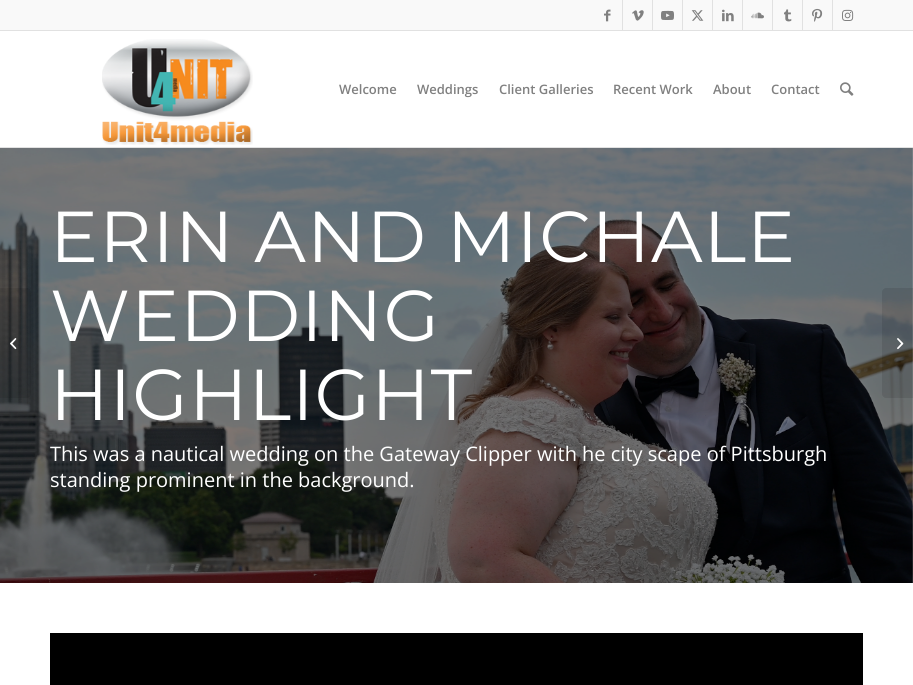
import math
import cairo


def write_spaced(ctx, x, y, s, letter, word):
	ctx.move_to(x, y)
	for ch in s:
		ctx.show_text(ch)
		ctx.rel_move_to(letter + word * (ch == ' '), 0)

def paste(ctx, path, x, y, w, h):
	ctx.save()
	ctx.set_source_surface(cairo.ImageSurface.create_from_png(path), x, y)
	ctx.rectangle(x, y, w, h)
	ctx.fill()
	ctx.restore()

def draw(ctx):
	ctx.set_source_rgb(1, 1, 1)
	ctx.paint()
	ctx.set_source_rgb(0.973, 0.973, 0.973)
	ctx.rectangle(0, 0, 913, 30)
	ctx.fill()
	ctx.set_source_rgb(0.882, 0.882, 0.882)
	ctx.rectangle(0, 30, 913, 1)
	ctx.rectangle(622, 0, 1, 30)
	ctx.fill()
	paste(ctx, 'media/1.png', 604, 9, 7, 13)
	ctx.rectangle(652, 0, 1, 30)
	ctx.fill()
	paste(ctx, 'media/2.png', 632, 10, 12, 11)
	ctx.rectangle(682, 0, 1, 30)
	ctx.fill()
	paste(ctx, 'media/3.png', 661, 10, 13, 10)
	ctx.rectangle(712, 0, 1, 30)
	ctx.fill()
	paste(ctx, 'media/4.png', 691, 10, 13, 11)
	ctx.rectangle(742, 0, 1, 30)
	ctx.fill()
	paste(ctx, 'media/5.png', 722, 9, 12, 13)
	ctx.rectangle(772, 0, 1, 30)
	ctx.fill()
	paste(ctx, 'media/6.png', 751, 12, 13, 7)
	ctx.rectangle(802, 0, 1, 30)
	ctx.fill()
	paste(ctx, 'media/7.png', 784, 9, 8, 13)
	ctx.rectangle(832, 0, 1, 30)
	ctx.fill()
	paste(ctx, 'media/8.png', 812, 8, 11, 14)
	paste(ctx, 'media/9.png', 842, 9, 12, 12)
	ctx.rectangle(0, 147, 913, 1)
	ctx.fill()
	paste(ctx, 'media/10.png', 102, 39, 151, 106)
	ctx.select_font_face('Open Sans SemiBold')
	ctx.set_font_size(13)
	ctx.set_source_rgb(0.502, 0.502, 0.502)
	for x, y, s in [
		(339, 94, 'Welcome'),
		(417, 94, 'Weddings'),
		(499, 94, 'Client Galleries'),
		(613, 94, 'Recent Work'),
		(713, 94, 'About'),
		(771, 94, 'Contact'),
	]:
		ctx.move_to(x, y)
		ctx.show_text(s)
	paste(ctx, 'media/11.png', 840, 82, 14, 14)
	paste(ctx, 'media/13.png', 0, 148, 913, 435)
	ctx.set_source_rgba(0, 0, 0, 0.1)
	ctx.new_path()
	ctx.move_to(0, 288)
	ctx.line_to(27, 288)
	ctx.curve_to(29, 288, 31, 290, 31, 292)
	ctx.line_to(31, 394)
	ctx.curve_to(31, 396, 29, 398, 27, 398)
	ctx.line_to(0, 398)
	ctx.close_path()
	ctx.fill()
	paste(ctx, 'media/12.png', 10, 338, 7, 12)
	ctx.select_font_face('Montserrat Thin')
	ctx.set_font_size(72)
	ctx.set_source_rgb(1, 1, 1)
	for x, y, s in [
		(50, 262, 'ERIN AND MICHALE'),
		(50, 341, 'WEDDING'),
		(50, 420, 'HIGHLIGHT'),
	]:
		write_spaced(ctx, x, y, s, 1, 0)
	ctx.select_font_face('Open Sans')
	ctx.set_font_size(20)
	ctx.move_to(50, 461)
	ctx.show_text('This was a nautical wedding on the Gateway Clipper with he city scape of Pittsburgh')
	ctx.move_to(50, 487)
	ctx.show_text('standing prominent in the background.')
	ctx.set_source_rgb(0, 0, 0)
	ctx.rectangle(50, 633, 813, 52)
	ctx.fill()
	ctx.set_source_rgba(0, 0, 0, 0.1)
	ctx.new_path()
	ctx.move_to(886, 288)
	ctx.line_to(913, 288)
	ctx.line_to(913, 398)
	ctx.line_to(886, 398)
	ctx.curve_to(884, 398, 882, 396, 882, 394)
	ctx.line_to(882, 292)
	ctx.curve_to(882, 290, 884, 288, 886, 288)
	ctx.close_path()
	ctx.fill()
	paste(ctx, 'media/14.png', 897, 338, 7, 12)


surface = cairo.ImageSurface(cairo.FORMAT_RGB24, 913, 685)
ctx = cairo.Context(surface)
options = cairo.FontOptions()
options.set_hint_metrics(cairo.HINT_METRICS_OFF)
options.set_hint_style(cairo.HINT_STYLE_NONE)
ctx.set_font_options(options)
ctx.set_miter_limit(4)
draw(ctx)
surface.write_to_png('image.png')
